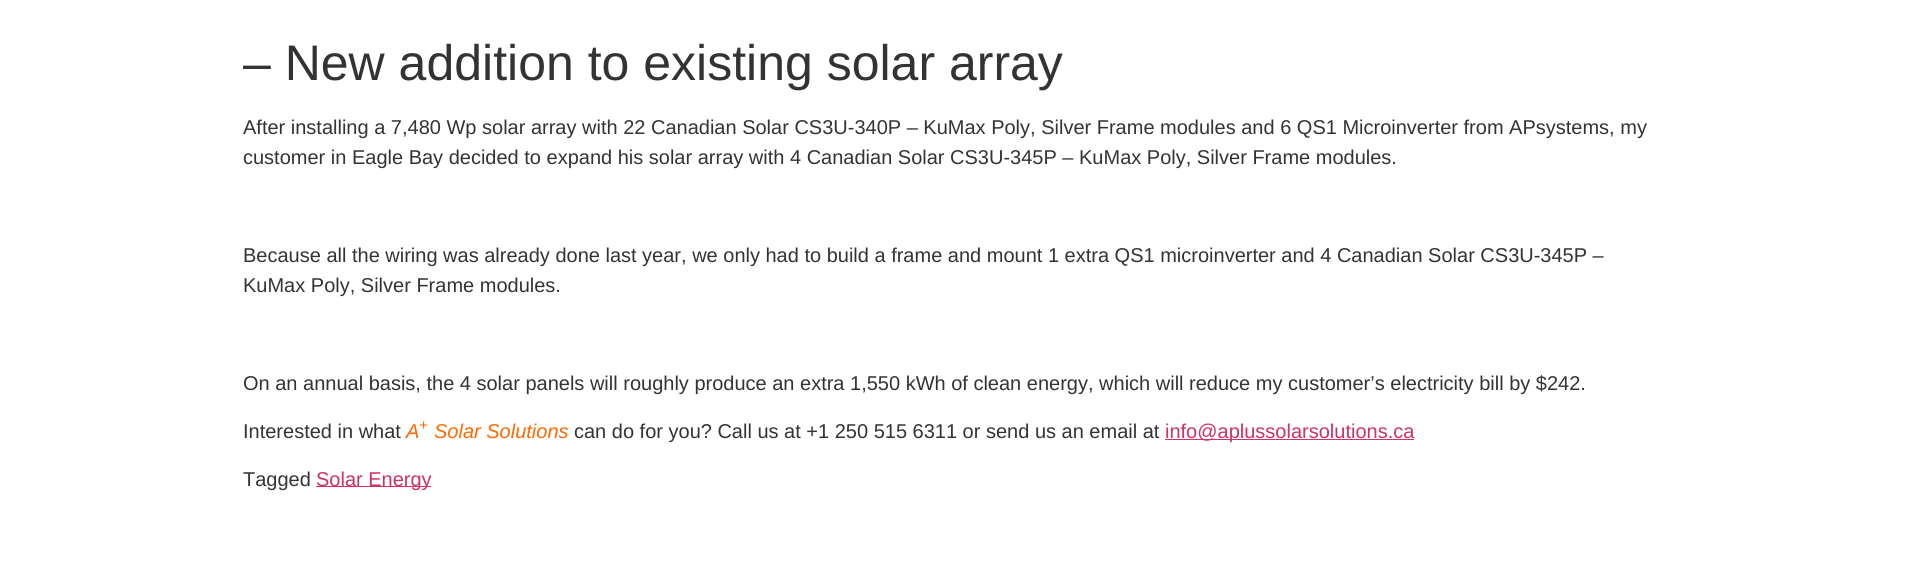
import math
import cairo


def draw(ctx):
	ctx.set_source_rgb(1, 1, 1)
	ctx.paint()
	ctx.select_font_face('Liberation Sans')
	ctx.set_font_size(50)
	ctx.set_source_rgb(0.2, 0.2, 0.2)
	ctx.move_to(243, 80)
	ctx.show_text('– New addition to existing solar array')
	ctx.set_font_size(20)
	for x, y, s in [
		(243, 134, 'After installing a 7,480 Wp solar array with 22 Canadian Solar CS3U-340P – KuMax Poly, Silver Frame modules and 6 QS1 Microinverter from APsystems, my'),
		(243, 164, 'customer in Eagle Bay decided to expand his solar array with 4 Canadian Solar CS3U-345P – KuMax Poly, Silver Frame modules.'),
		(243, 262, 'Because all the wiring was already done last year, we only had to build a frame and mount 1 extra QS1 microinverter and 4 Canadian Solar CS3U-345P –'),
		(243, 292, 'KuMax Poly, Silver Frame modules.'),
		(243, 390, 'On an annual basis, the 4 solar panels will roughly produce an extra 1,550 kWh of clean energy, which will reduce my customer’s electricity bill by $242.'),
		(243, 438, 'Interested in what'),
	]:
		ctx.move_to(x, y)
		ctx.show_text(s)
	ctx.select_font_face('Liberation Sans', cairo.FONT_SLANT_ITALIC)
	ctx.set_source_rgb(1, 0.412, 0)
	ctx.move_to(406, 438)
	ctx.show_text('A')
	ctx.set_font_size(15)
	ctx.move_to(419, 430)
	ctx.show_text('+')
	ctx.set_font_size(20)
	ctx.move_to(434, 438)
	ctx.show_text('Solar Solutions')
	ctx.select_font_face('Liberation Sans')
	ctx.set_source_rgb(0.2, 0.2, 0.2)
	ctx.move_to(574, 438)
	ctx.show_text('can do for you? Call us at +1 250 515 6311 or send us an email at')
	ctx.set_source_rgb(0.8, 0.2, 0.4)
	ctx.rectangle(1165, 439, 249, 1)
	ctx.fill()
	ctx.move_to(1165, 438)
	ctx.show_text('info@aplussolarsolutions.ca')
	ctx.set_source_rgb(0.2, 0.2, 0.2)
	ctx.move_to(243, 486)
	ctx.show_text('Tagged')
	ctx.set_source_rgb(0.8, 0.2, 0.4)
	ctx.rectangle(316, 486, 115, 1)
	ctx.fill()
	ctx.move_to(316, 486)
	ctx.show_text('Solar Energy')


surface = cairo.ImageSurface(cairo.FORMAT_RGB24, 1910, 563)
ctx = cairo.Context(surface)
options = cairo.FontOptions()
options.set_hint_metrics(cairo.HINT_METRICS_OFF)
options.set_hint_style(cairo.HINT_STYLE_NONE)
ctx.set_font_options(options)
ctx.set_miter_limit(4)
draw(ctx)
surface.write_to_png('image.png')
